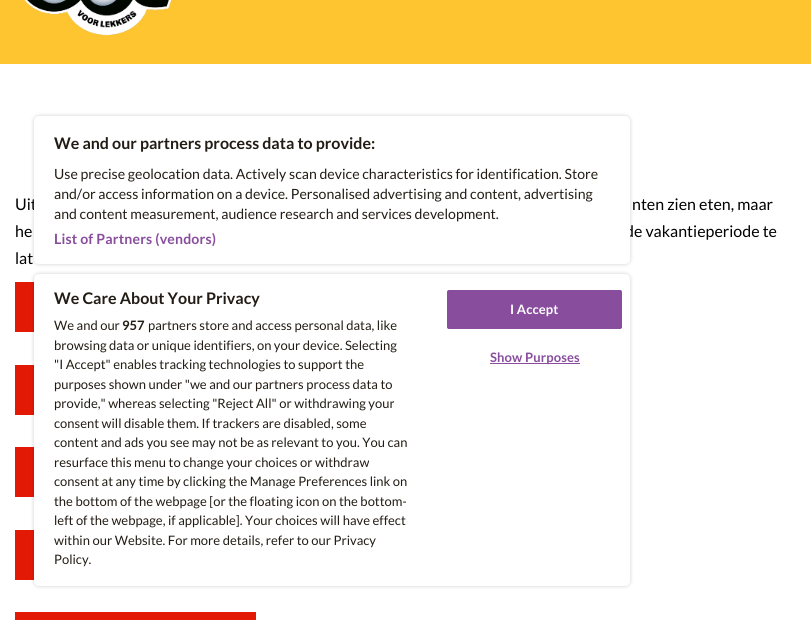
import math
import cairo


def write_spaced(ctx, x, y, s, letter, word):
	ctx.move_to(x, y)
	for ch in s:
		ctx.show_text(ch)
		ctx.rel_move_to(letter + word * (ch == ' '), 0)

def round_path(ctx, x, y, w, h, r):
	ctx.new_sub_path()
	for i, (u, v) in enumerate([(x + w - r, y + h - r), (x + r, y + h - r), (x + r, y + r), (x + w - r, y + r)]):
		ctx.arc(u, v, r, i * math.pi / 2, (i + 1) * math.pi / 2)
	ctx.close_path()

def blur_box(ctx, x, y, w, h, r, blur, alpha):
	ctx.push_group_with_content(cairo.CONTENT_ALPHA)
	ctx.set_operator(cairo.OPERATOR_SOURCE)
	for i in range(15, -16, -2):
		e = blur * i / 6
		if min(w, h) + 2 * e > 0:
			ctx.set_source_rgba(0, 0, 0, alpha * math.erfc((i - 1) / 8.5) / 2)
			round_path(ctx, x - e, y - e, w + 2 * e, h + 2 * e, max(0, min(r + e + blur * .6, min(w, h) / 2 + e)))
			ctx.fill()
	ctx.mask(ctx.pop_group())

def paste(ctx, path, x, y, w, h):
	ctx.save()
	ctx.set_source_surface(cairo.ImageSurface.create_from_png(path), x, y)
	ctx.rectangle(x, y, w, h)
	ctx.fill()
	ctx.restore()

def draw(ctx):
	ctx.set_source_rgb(1, 1, 1)
	ctx.paint()
	ctx.set_source_rgb(0, 0, 0)
	blur_box(ctx, 34, 116, 596, 148, 5, 2, 0.2)
	ctx.select_font_face('Lato')
	ctx.set_font_size(16)
	ctx.set_source_rgb(0, 0, 0)
	ctx.move_to(15, 210)
	ctx.show_text('Uit')
	ctx.move_to(625, 237)
	ctx.show_text('de vakantieperiode te')
	ctx.set_source_rgb(1, 1, 1)
	round_path(ctx, 34, 116, 596, 148, 5)
	ctx.fill()
	ctx.select_font_face('Lato', cairo.FONT_SLANT_NORMAL, cairo.FONT_WEIGHT_BOLD)
	ctx.set_source_rgb(0.133, 0.11, 0.082)
	ctx.move_to(54, 149)
	ctx.show_text('We and our partners process data to provide:')
	ctx.select_font_face('Lato')
	ctx.set_font_size(14.1)
	for x, y, s in [
		(54, 179, 'Use precise geolocation data. Actively scan device characteristics for identification. Store'),
		(54, 199, 'and/or access information on a device. Personalised advertising and content, advertising'),
		(54, 219, 'and content measurement, audience research and services development.'),
	]:
		ctx.move_to(x, y)
		ctx.show_text(s)
	ctx.select_font_face('Lato', cairo.FONT_SLANT_NORMAL, cairo.FONT_WEIGHT_BOLD)
	ctx.set_source_rgb(0.533, 0.302, 0.616)
	write_spaced(ctx, 54, 244, 'List of Partners (vendors)', 0.15, 0)
	ctx.set_source_rgb(0.886, 0.098, 0.02)
	ctx.rectangle(15, 282, 19, 50)
	ctx.rectangle(15, 365, 19, 50)
	ctx.rectangle(15, 447, 19, 50)
	ctx.rectangle(15, 530, 19, 50)
	ctx.fill()
	ctx.set_source_rgb(0, 0, 0)
	blur_box(ctx, 34, 274, 596, 312, 5, 2, 0.2)
	ctx.set_source_rgb(1, 1, 1)
	round_path(ctx, 34, 274, 596, 312, 5)
	ctx.fill()
	ctx.set_font_size(16)
	ctx.set_source_rgb(0.133, 0.11, 0.082)
	ctx.move_to(54, 304)
	ctx.show_text('We Care About Your Privacy')
	ctx.select_font_face('Lato')
	ctx.set_font_size(13)
	ctx.move_to(54, 330)
	ctx.show_text('We and our')
	ctx.select_font_face('Lato', cairo.FONT_SLANT_NORMAL, cairo.FONT_WEIGHT_BOLD)
	ctx.move_to(122, 330)
	ctx.show_text('957')
	ctx.select_font_face('Lato')
	for x, y, s in [
		(148, 330, 'partners store and access personal data, like'),
		(54, 350, 'browsing data or unique identifiers, on your device. Selecting'),
		(54, 369, '"I Accept" enables tracking technologies to support the'),
		(54, 389, 'purposes shown under "we and our partners process data to'),
		(54, 408, 'provide," whereas selecting "Reject All" or withdrawing your'),
		(54, 428, 'consent will disable them. If trackers are disabled, some'),
		(54, 447, 'content and ads you see may not be as relevant to you. You can'),
		(54, 467, 'resurface this menu to change your choices or withdraw'),
		(54, 486, 'consent at any time by clicking the Manage Preferences link on'),
		(54, 506, 'the bottom of the webpage [or the floating icon on the bottom-'),
		(54, 525, 'left of the webpage, if applicable]. Your choices will have effect'),
		(54, 545, 'within our Website. For more details, refer to our Privacy'),
		(54, 564, 'Policy.'),
	]:
		ctx.move_to(x, y)
		ctx.show_text(s)
	ctx.set_source_rgb(0.533, 0.302, 0.616)
	round_path(ctx, 447.5, 290.5, 174, 38, 1.5)
	ctx.fill_preserve()
	ctx.set_line_width(1)
	ctx.stroke()
	ctx.select_font_face('Lato', cairo.FONT_SLANT_NORMAL, cairo.FONT_WEIGHT_BOLD)
	ctx.set_source_rgb(1, 1, 1)
	write_spaced(ctx, 510, 314, 'I Accept', 0.1, 0)
	ctx.set_source_rgb(0.533, 0.302, 0.616)
	ctx.rectangle(490, 363, 90, 1)
	ctx.fill()
	write_spaced(ctx, 490, 362, 'Show Purposes', 0.1, 0)
	ctx.set_source_rgb(1, 0.773, 0.192)
	ctx.rectangle(0, 0, 811, 64)
	ctx.fill()
	paste(ctx, 'media/1.png', 24, 0, 148, 36)
	ctx.select_font_face('Lato')
	ctx.set_font_size(16)
	ctx.set_source_rgb(0, 0, 0)
	for x, y, s in [
		(632, 210, 'nten zien eten, maar'),
		(15, 237, 'he'),
		(15, 264, 'lat'),
	]:
		ctx.move_to(x, y)
		ctx.show_text(s)
	ctx.set_source_rgb(0.886, 0.098, 0.02)
	ctx.rectangle(15, 612, 241, 8)
	ctx.fill()


surface = cairo.ImageSurface(cairo.FORMAT_RGB24, 811, 620)
ctx = cairo.Context(surface)
options = cairo.FontOptions()
options.set_hint_metrics(cairo.HINT_METRICS_OFF)
options.set_hint_style(cairo.HINT_STYLE_NONE)
ctx.set_font_options(options)
ctx.set_miter_limit(4)
draw(ctx)
surface.write_to_png('image.png')
